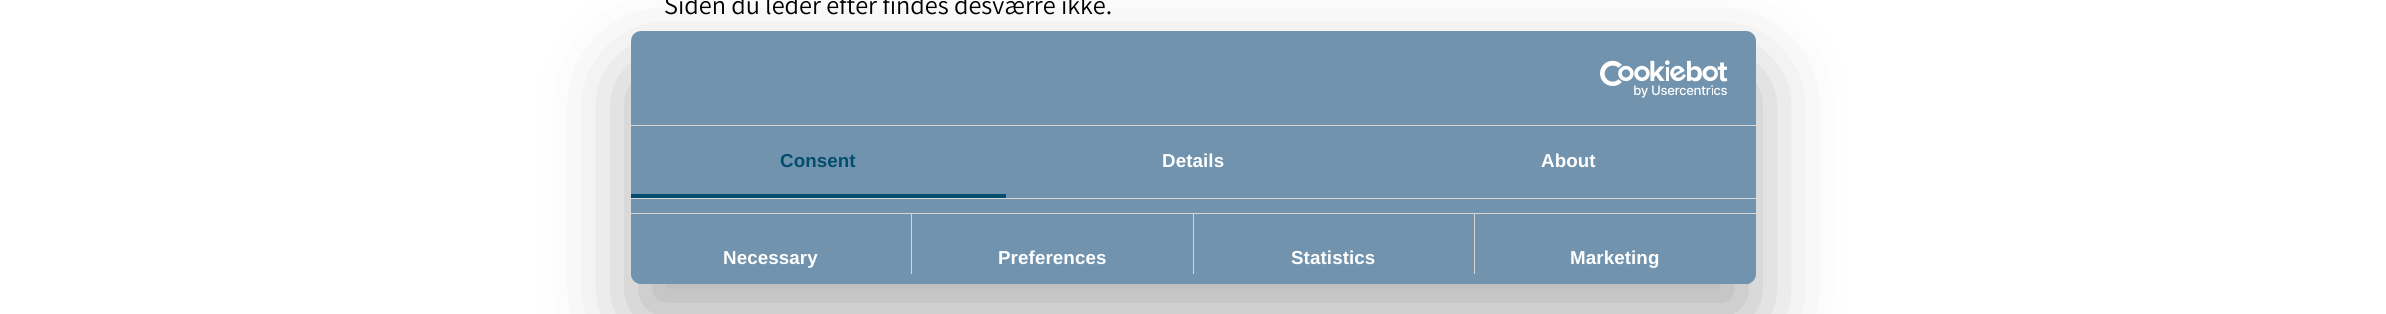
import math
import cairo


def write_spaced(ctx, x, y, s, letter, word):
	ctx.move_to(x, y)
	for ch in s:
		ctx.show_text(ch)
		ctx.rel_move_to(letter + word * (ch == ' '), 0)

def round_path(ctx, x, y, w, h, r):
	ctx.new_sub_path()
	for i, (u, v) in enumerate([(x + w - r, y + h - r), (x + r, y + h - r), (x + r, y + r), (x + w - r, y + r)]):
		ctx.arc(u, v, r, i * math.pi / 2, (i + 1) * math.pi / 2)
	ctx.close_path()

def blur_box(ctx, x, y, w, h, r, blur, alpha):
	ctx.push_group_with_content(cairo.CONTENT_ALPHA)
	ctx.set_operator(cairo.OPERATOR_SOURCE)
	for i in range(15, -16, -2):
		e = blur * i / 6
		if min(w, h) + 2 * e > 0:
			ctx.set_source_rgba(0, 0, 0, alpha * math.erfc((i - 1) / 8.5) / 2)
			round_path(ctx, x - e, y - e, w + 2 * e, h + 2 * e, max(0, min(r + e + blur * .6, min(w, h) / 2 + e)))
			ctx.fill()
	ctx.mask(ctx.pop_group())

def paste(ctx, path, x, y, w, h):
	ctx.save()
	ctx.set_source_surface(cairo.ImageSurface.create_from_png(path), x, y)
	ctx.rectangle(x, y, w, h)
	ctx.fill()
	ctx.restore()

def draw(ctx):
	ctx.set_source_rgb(1, 1, 1)
	ctx.paint()
	ctx.select_font_face('Assistant')
	ctx.set_font_size(26.25)
	ctx.set_source_rgb(0, 0, 0)
	ctx.move_to(664, 14)
	ctx.show_text('Siden du leder efter findes desværre ikke.')
	ctx.set_source_rgb(0, 0, 0)
	blur_box(ctx, 631, 71, 1125, 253, 10, 42.5, 0.3)
	ctx.set_source_rgb(0.443, 0.576, 0.678)
	round_path(ctx, 631, 31, 1125, 253, 10)
	ctx.fill()
	ctx.set_source_rgb(0.839, 0.839, 0.839)
	ctx.rectangle(631, 125, 1125, 1)
	ctx.fill()
	paste(ctx, 'media/1.png', 1600, 60, 128, 38)
	ctx.rectangle(631, 198, 1125, 1)
	ctx.fill()
	ctx.set_source_rgb(0.008, 0.302, 0.427)
	ctx.rectangle(631, 194, 375, 4)
	ctx.fill()
	ctx.select_font_face('Liberation Sans', cairo.FONT_SLANT_NORMAL, cairo.FONT_WEIGHT_BOLD)
	ctx.set_font_size(18.75)
	write_spaced(ctx, 780, 167, 'Consent', 0.1, 0)
	ctx.set_source_rgb(1, 1, 1)
	write_spaced(ctx, 1162, 167, 'Details', 0.1, 0)
	write_spaced(ctx, 1541, 167, 'About', 0.1, 0)
	ctx.set_source_rgb(0.839, 0.839, 0.839)
	ctx.rectangle(631, 213, 1125, 1)
	ctx.fill()
	ctx.rectangle(911, 214, 1, 60)
	ctx.fill()
	ctx.set_source_rgb(1, 1, 1)
	write_spaced(ctx, 723, 264, 'Necessary', 0.1, 0)
	ctx.set_source_rgb(0.839, 0.839, 0.839)
	ctx.rectangle(1193, 214, 1, 60)
	ctx.fill()
	ctx.set_source_rgb(1, 1, 1)
	write_spaced(ctx, 998, 264, 'Preferences', 0.1, 0)
	ctx.set_source_rgb(0.839, 0.839, 0.839)
	ctx.rectangle(1474, 214, 1, 60)
	ctx.fill()
	ctx.set_source_rgb(1, 1, 1)
	write_spaced(ctx, 1291, 264, 'Statistics', 0.1, 0)
	write_spaced(ctx, 1570, 264, 'Marketing', 0.1, 0)
	ctx.set_source_rgb(0.443, 0.576, 0.678)
	ctx.rectangle(1746, 283, 3, 1)
	ctx.fill()


surface = cairo.ImageSurface(cairo.FORMAT_RGB24, 2386, 314)
ctx = cairo.Context(surface)
options = cairo.FontOptions()
options.set_hint_metrics(cairo.HINT_METRICS_OFF)
options.set_hint_style(cairo.HINT_STYLE_NONE)
ctx.set_font_options(options)
ctx.set_miter_limit(4)
draw(ctx)
surface.write_to_png('image.png')
